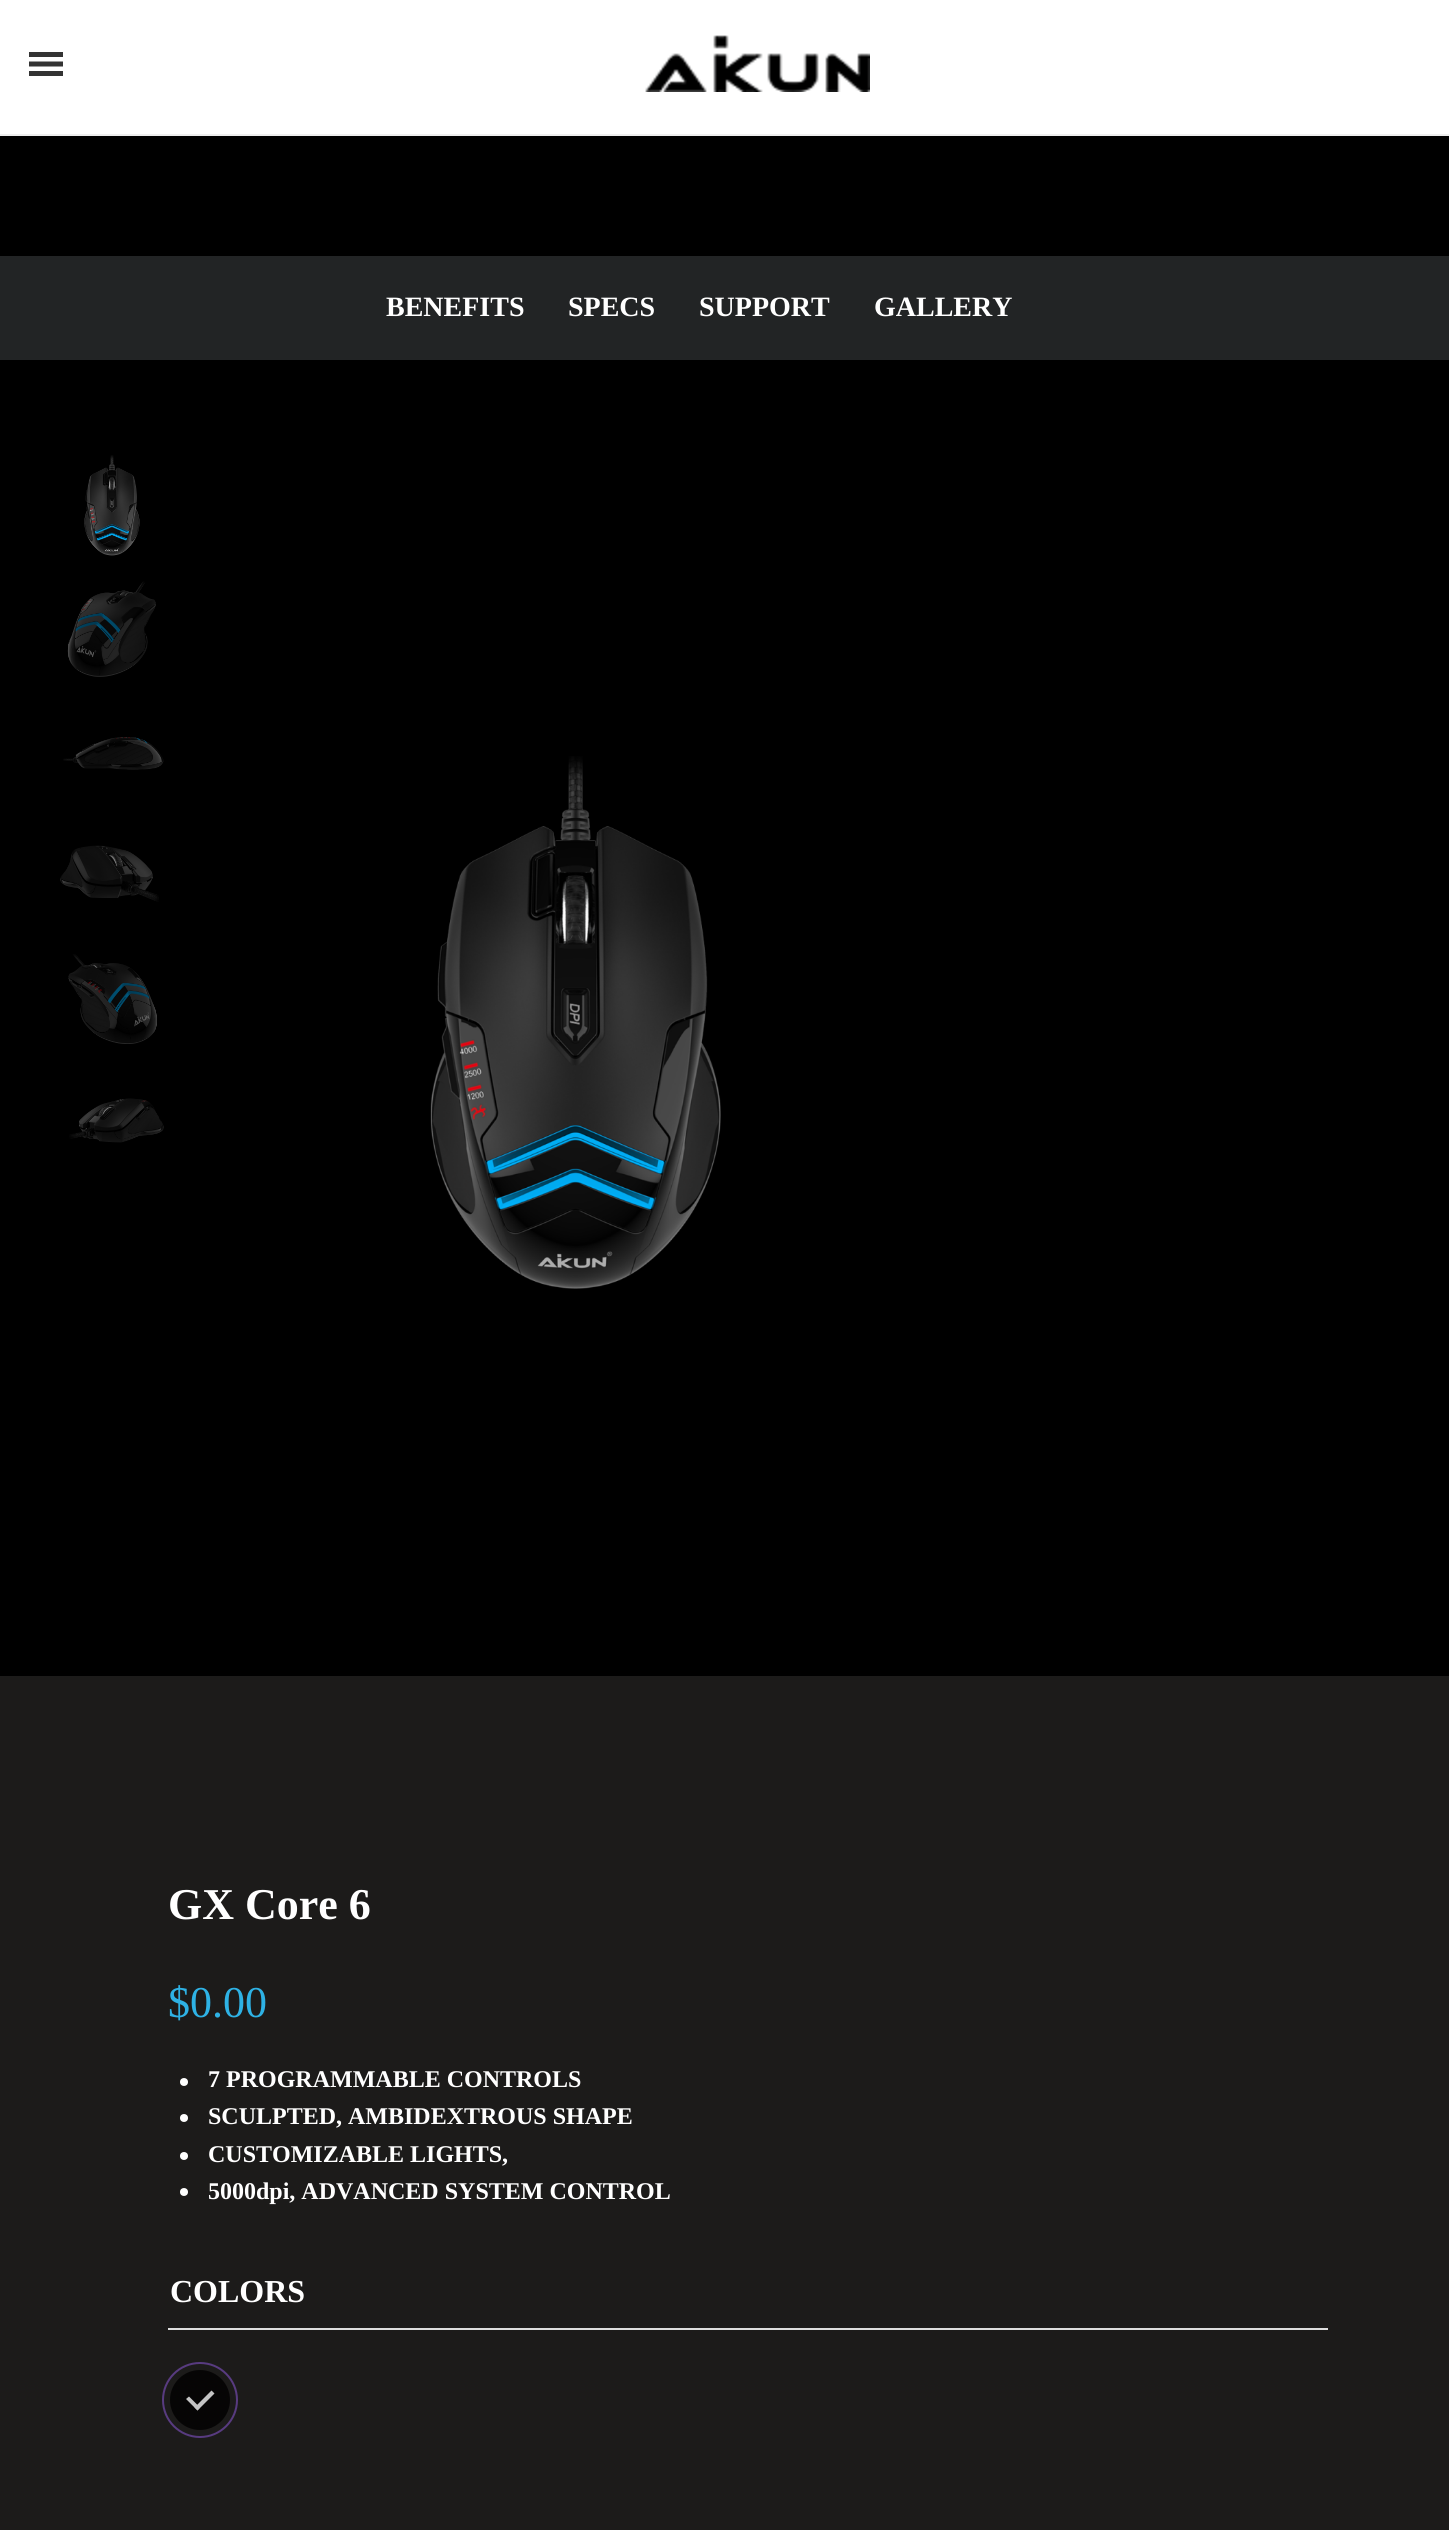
import math
import cairo


def paste(ctx, path, x, y, w, h):
	ctx.save()
	ctx.set_source_surface(cairo.ImageSurface.create_from_png(path), x, y)
	ctx.rectangle(x, y, w, h)
	ctx.fill()
	ctx.restore()

def draw(ctx):
	ctx.set_source_rgb(0, 0, 0)
	ctx.paint()
	ctx.set_source_rgb(1, 1, 1)
	ctx.rectangle(0, 0, 1449, 134)
	ctx.fill()
	paste(ctx, 'media/1.png', 645, 35, 225, 57)
	ctx.set_source_rgb(0.933, 0.933, 0.933)
	ctx.rectangle(0, 134, 1449, 2)
	ctx.fill()
	ctx.set_source_rgb(0.2, 0.2, 0.2)
	ctx.new_path()
	ctx.move_to(29, 76)
	ctx.line_to(63, 76)
	ctx.line_to(63, 71)
	ctx.line_to(29, 71)
	ctx.close_path()
	ctx.move_to(29, 52)
	ctx.line_to(29, 57)
	ctx.line_to(63, 57)
	ctx.line_to(63, 52)
	ctx.close_path()
	ctx.move_to(29, 66.5)
	ctx.line_to(63, 66.5)
	ctx.line_to(63, 61.5)
	ctx.line_to(29, 61.5)
	ctx.close_path()
	ctx.fill()
	ctx.set_source_rgb(0.133, 0.141, 0.145)
	ctx.rectangle(0, 256, 1449, 104)
	ctx.fill()
	ctx.select_font_face('Liberation Serif', cairo.FONT_SLANT_NORMAL, cairo.FONT_WEIGHT_BOLD)
	ctx.set_font_size(28)
	ctx.set_source_rgb(1, 1, 1)
	for x, y, s in [
		(386, 316, 'BENEFITS'),
		(568, 316, 'SPECS'),
		(699, 316, 'SUPPORT'),
		(874, 316, 'GALLERY'),
	]:
		ctx.move_to(x, y)
		ctx.show_text(s)
	paste(ctx, 'media/2.png', 84, 455, 56, 101)
	paste(ctx, 'media/3.png', 67, 581, 89, 96)
	paste(ctx, 'media/4.png', 63, 737, 101, 33)
	paste(ctx, 'media/5.png', 60, 845, 99, 57)
	paste(ctx, 'media/6.png', 68, 954, 89, 90)
	paste(ctx, 'media/7.png', 69, 1098, 95, 45)
	paste(ctx, 'media/8.png', 430, 756, 291, 533)
	ctx.set_source_rgb(0.11, 0.106, 0.102)
	ctx.rectangle(0, 1676, 1449, 854)
	ctx.fill()
	ctx.set_font_size(44)
	ctx.set_source_rgb(1, 1, 1)
	ctx.move_to(168, 1919)
	ctx.show_text('GX Core 6')
	ctx.select_font_face('Liberation Serif')
	ctx.set_source_rgb(0.18, 0.698, 0.898)
	ctx.move_to(168, 2017)
	ctx.show_text('$0.00')
	ctx.set_source_rgb(1, 1, 1)
	ctx.new_path()
	ctx.arc(184, 2082, 4, 0, 2 * math.pi)
	ctx.fill()
	ctx.select_font_face('Liberation Serif', cairo.FONT_SLANT_NORMAL, cairo.FONT_WEIGHT_BOLD)
	ctx.set_font_size(24)
	ctx.move_to(208, 2087)
	ctx.show_text('7 PROGRAMMABLE CONTROLS')
	ctx.new_path()
	ctx.arc(184, 2118, 4, 0, 2 * math.pi)
	ctx.fill()
	ctx.move_to(208, 2124)
	ctx.show_text('SCULPTED, AMBIDEXTROUS SHAPE')
	ctx.new_path()
	ctx.arc(184, 2156, 4, 0, 2 * math.pi)
	ctx.fill()
	ctx.move_to(208, 2162)
	ctx.show_text('CUSTOMIZABLE LIGHTS,')
	ctx.new_path()
	ctx.arc(184, 2192, 4, 0, 2 * math.pi)
	ctx.fill()
	ctx.move_to(208, 2199)
	ctx.show_text('5000dpi, ADVANCED SYSTEM CONTROL')
	ctx.set_source_rgb(0.871, 0.871, 0.871)
	ctx.rectangle(168, 2328, 1160, 2)
	ctx.fill()
	ctx.set_font_size(32)
	ctx.set_source_rgb(1, 1, 1)
	ctx.move_to(170, 2302)
	ctx.show_text('COLORS')
	ctx.set_source_rgb(0.024, 0.02, 0.02)
	ctx.new_path()
	ctx.arc(200, 2400, 30, 0, 2 * math.pi)
	ctx.fill()
	ctx.arc(200, 2400, 37, 0, 2 * math.pi)
	ctx.set_source_rgb(0.345, 0.231, 0.502)
	ctx.stroke()
	ctx.set_source_rgb(0.769, 0.769, 0.769)
	ctx.new_path()
	ctx.move_to(211.5, 2390.5)
	ctx.line_to(214.5, 2393.5)
	ctx.line_to(197.5, 2410.5)
	ctx.line_to(194.5, 2407.5)
	ctx.close_path()
	ctx.fill()
	ctx.new_path()
	ctx.move_to(189, 2396.5)
	ctx.line_to(200, 2407.5)
	ctx.line_to(197.5, 2410.5)
	ctx.line_to(186, 2399)
	ctx.close_path()
	ctx.fill()


surface = cairo.ImageSurface(cairo.FORMAT_RGB24, 1449, 2530)
ctx = cairo.Context(surface)
options = cairo.FontOptions()
options.set_hint_metrics(cairo.HINT_METRICS_OFF)
options.set_hint_style(cairo.HINT_STYLE_NONE)
ctx.set_font_options(options)
ctx.set_miter_limit(4)
draw(ctx)
surface.write_to_png('image.png')
